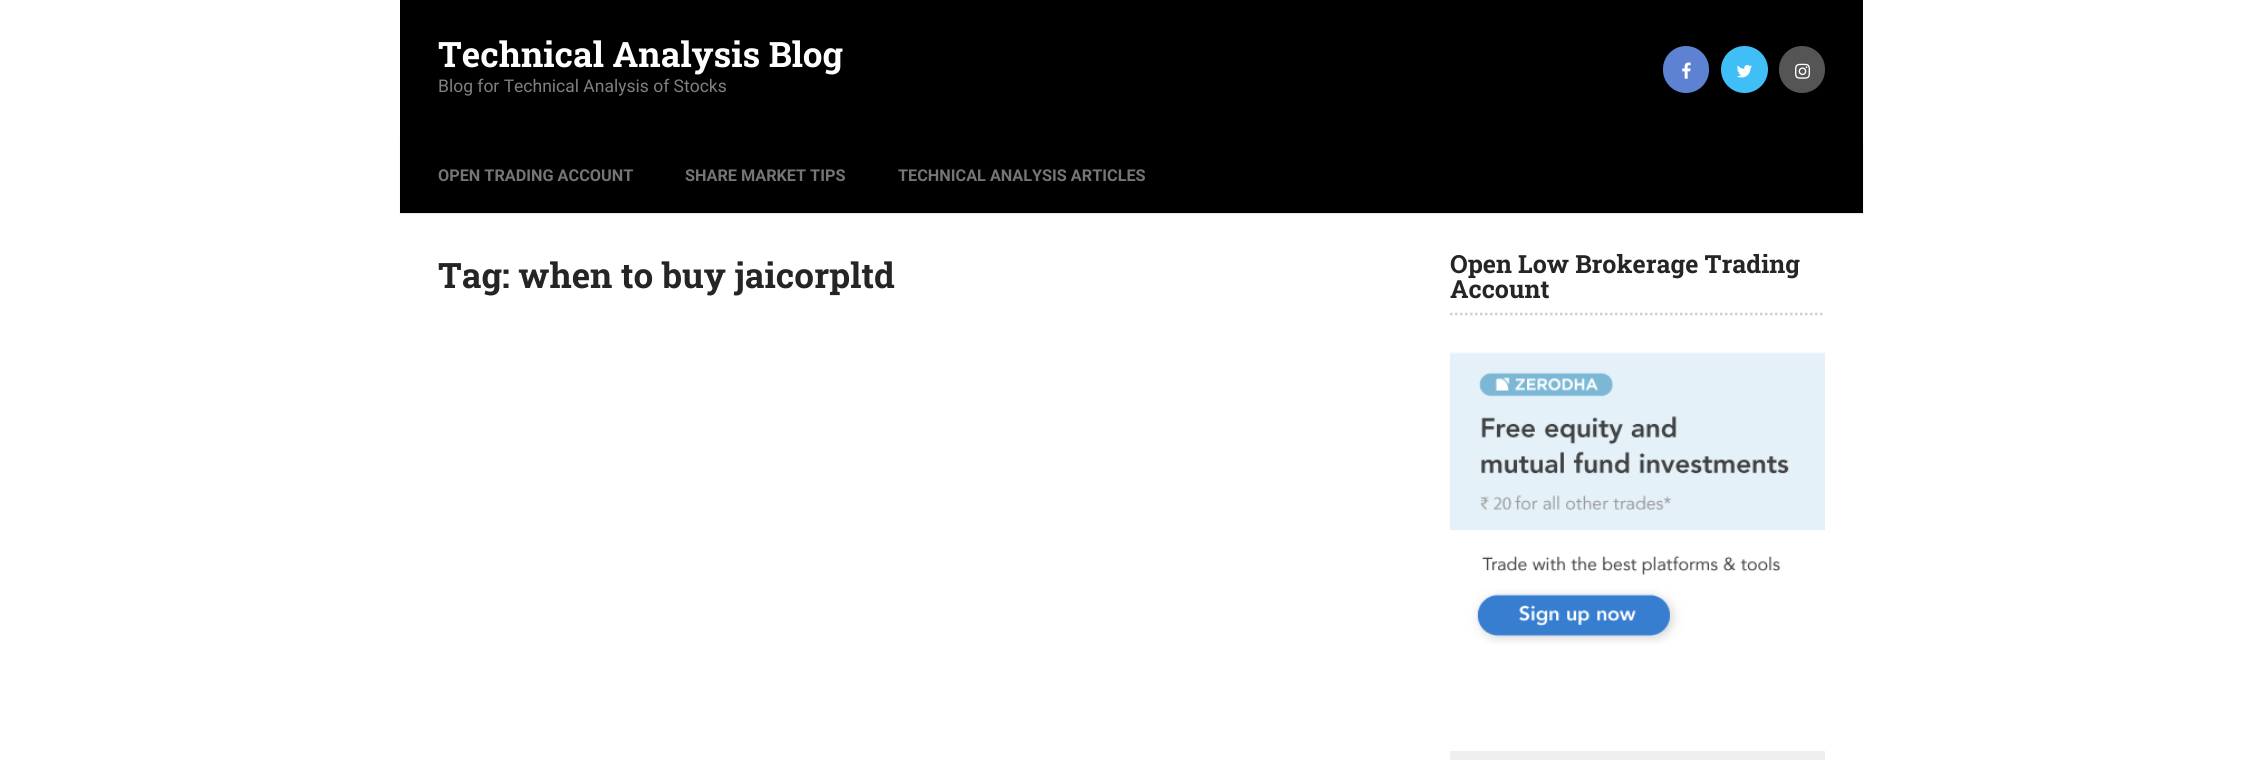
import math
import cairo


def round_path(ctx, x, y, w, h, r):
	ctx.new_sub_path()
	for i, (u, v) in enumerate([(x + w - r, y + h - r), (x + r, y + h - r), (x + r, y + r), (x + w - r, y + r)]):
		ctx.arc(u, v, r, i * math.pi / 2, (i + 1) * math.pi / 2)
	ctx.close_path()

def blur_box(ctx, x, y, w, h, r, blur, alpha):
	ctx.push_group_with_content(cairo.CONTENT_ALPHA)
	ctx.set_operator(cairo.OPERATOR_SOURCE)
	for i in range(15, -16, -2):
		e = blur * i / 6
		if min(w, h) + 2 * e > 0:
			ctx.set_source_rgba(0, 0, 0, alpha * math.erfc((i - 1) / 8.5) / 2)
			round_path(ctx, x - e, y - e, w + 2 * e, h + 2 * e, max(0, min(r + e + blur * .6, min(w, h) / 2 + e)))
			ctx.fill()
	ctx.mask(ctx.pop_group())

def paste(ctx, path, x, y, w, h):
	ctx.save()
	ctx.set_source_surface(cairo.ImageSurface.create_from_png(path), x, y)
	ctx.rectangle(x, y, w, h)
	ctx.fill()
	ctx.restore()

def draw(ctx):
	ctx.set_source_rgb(1, 1, 1)
	ctx.paint()
	ctx.set_source_rgb(0, 0, 0)
	ctx.rectangle(400, 0, 1463, 138)
	ctx.fill()
	ctx.select_font_face('Roboto Slab', cairo.FONT_SLANT_NORMAL, cairo.FONT_WEIGHT_BOLD)
	ctx.set_font_size(35)
	ctx.set_source_rgb(1, 1, 1)
	ctx.move_to(438, 67)
	ctx.show_text('Technical Analysis Blog')
	ctx.select_font_face('Roboto')
	ctx.set_font_size(17.5)
	ctx.set_source_rgb(0.502, 0.502, 0.502)
	ctx.move_to(438, 92)
	ctx.show_text('Blog for Technical Analysis of Stocks')
	ctx.set_source_rgb(0.365, 0.51, 0.82)
	round_path(ctx, 1663, 46, 46, 47, 23)
	ctx.fill()
	paste(ctx, 'media/1.png', 1682, 62, 9, 17)
	ctx.set_source_rgb(0.251, 0.749, 0.961)
	ctx.arc(1744.5, 69.5, 23.5, 0, 2 * math.pi)
	ctx.fill()
	paste(ctx, 'media/2.png', 1736, 65, 16, 13)
	ctx.set_source_rgb(0.333, 0.333, 0.333)
	round_path(ctx, 1779, 46, 46, 47, 23)
	ctx.fill()
	paste(ctx, 'media/3.png', 1795, 63, 15, 16)
	ctx.set_source_rgb(0, 0, 0)
	blur_box(ctx, 400, 139, 1463, 75, 0, 0.5, 0.1)
	ctx.set_source_rgb(0, 0, 0)
	ctx.rectangle(400, 138, 1463, 75)
	ctx.fill()
	ctx.select_font_face('Roboto', cairo.FONT_SLANT_NORMAL, cairo.FONT_WEIGHT_BOLD)
	ctx.set_font_size(16.25)
	ctx.set_source_rgb(0.459, 0.459, 0.459)
	for x, y, s in [
		(438, 181, 'OPEN TRADING ACCOUNT'),
		(685, 181, 'SHARE MARKET TIPS'),
		(898, 181, 'TECHNICAL ANALYSIS ARTICLES'),
	]:
		ctx.move_to(x, y)
		ctx.show_text(s)
	ctx.select_font_face('Roboto Slab', cairo.FONT_SLANT_NORMAL, cairo.FONT_WEIGHT_BOLD)
	ctx.set_font_size(35)
	ctx.set_source_rgb(0.145, 0.145, 0.145)
	ctx.move_to(438, 288)
	ctx.show_text('Tag: when to buy jaicorpltd')
	ctx.new_path()
	ctx.move_to(1450, 314)
	ctx.line_to(1825, 314)
	ctx.set_source_rgb(0.82, 0.82, 0.82)
	ctx.set_line_width(2.5)
	ctx.set_dash([2.5, 2.5])
	ctx.stroke()
	ctx.set_font_size(25)
	ctx.set_source_rgb(0.145, 0.145, 0.145)
	ctx.move_to(1450, 273)
	ctx.show_text('Open Low Brokerage Trading')
	ctx.move_to(1450, 298)
	ctx.show_text('Account')
	paste(ctx, 'media/4.png', 1450, 352, 375, 292)
	ctx.set_source_rgb(0.937, 0.937, 0.937)
	ctx.rectangle(1450, 751, 375, 9)
	ctx.fill()


surface = cairo.ImageSurface(cairo.FORMAT_RGB24, 2262, 760)
ctx = cairo.Context(surface)
options = cairo.FontOptions()
options.set_hint_metrics(cairo.HINT_METRICS_OFF)
options.set_hint_style(cairo.HINT_STYLE_NONE)
ctx.set_font_options(options)
ctx.set_miter_limit(4)
draw(ctx)
surface.write_to_png('image.png')
